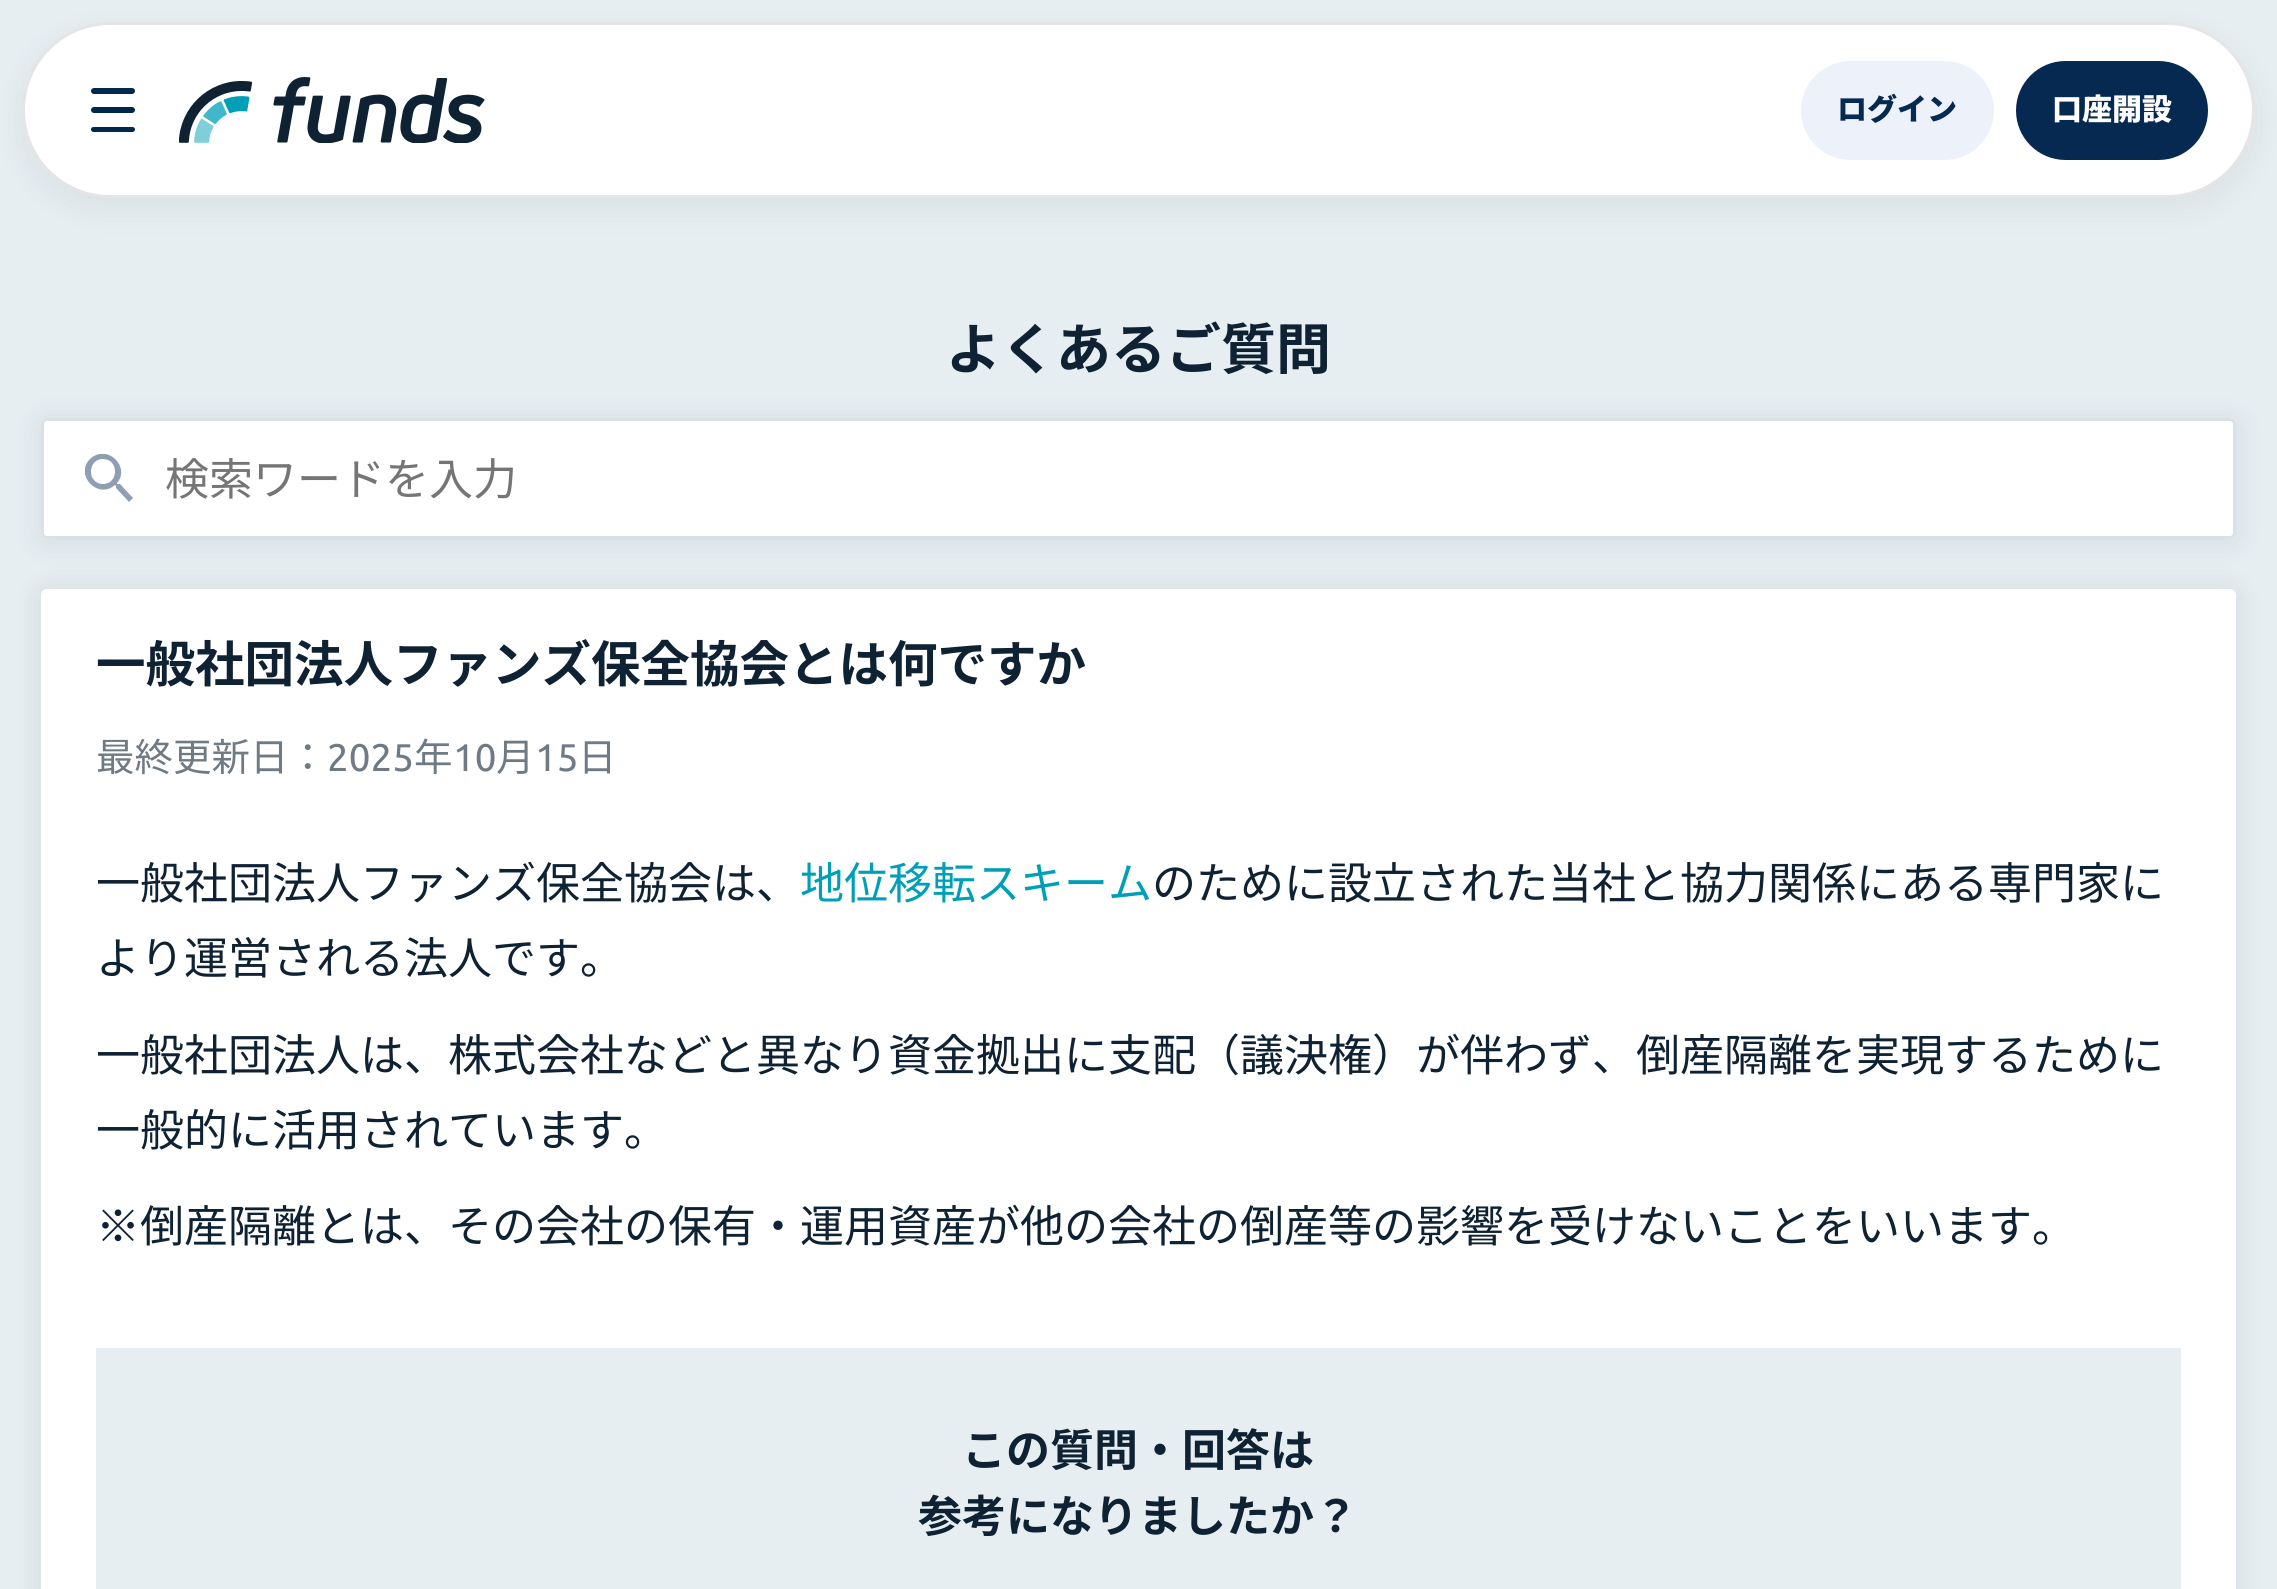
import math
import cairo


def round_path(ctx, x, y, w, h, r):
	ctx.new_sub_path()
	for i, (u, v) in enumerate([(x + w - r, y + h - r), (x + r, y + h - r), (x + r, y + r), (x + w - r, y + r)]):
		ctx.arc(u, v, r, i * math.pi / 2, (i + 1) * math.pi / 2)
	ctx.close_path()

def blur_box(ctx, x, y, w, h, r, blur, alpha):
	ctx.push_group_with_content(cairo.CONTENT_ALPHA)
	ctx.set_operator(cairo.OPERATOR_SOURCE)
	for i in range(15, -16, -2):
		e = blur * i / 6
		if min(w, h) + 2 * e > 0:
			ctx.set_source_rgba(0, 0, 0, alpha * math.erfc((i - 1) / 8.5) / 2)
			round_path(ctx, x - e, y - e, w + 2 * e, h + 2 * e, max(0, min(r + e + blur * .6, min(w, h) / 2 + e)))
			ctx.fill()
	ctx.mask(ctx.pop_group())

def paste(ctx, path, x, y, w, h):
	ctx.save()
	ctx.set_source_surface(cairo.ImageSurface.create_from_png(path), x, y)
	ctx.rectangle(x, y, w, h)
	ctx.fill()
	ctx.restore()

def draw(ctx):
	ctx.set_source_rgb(0.902, 0.933, 0.949)
	ctx.paint()
	ctx.set_source_rgb(0, 0, 0)
	blur_box(ctx, 22, 33, 2233, 176, 88, 16.5, 0.06)
	ctx.set_source_rgb(1, 1, 1)
	round_path(ctx, 23.5, 23.5, 2230, 173, 86.5)
	ctx.fill_preserve()
	ctx.set_source_rgb(0.898, 0.898, 0.898)
	ctx.set_line_width(3)
	ctx.stroke()
	ctx.set_source_rgb(0, 0.157, 0.298)
	round_path(ctx, 91, 88, 44, 6, 3)
	ctx.fill()
	round_path(ctx, 91, 107, 44, 6, 3)
	ctx.fill()
	round_path(ctx, 91, 127, 44, 5, 2.5)
	ctx.fill()
	paste(ctx, 'media/1.png', 179, 77, 306, 66)
	ctx.set_source_rgb(0.929, 0.949, 0.98)
	round_path(ctx, 1801, 61, 193, 99, 49.5)
	ctx.fill()
	ctx.select_font_face('Noto Sans JP Black')
	ctx.set_font_size(30)
	ctx.set_source_rgb(0.024, 0.161, 0.322)
	ctx.move_to(1837, 120)
	ctx.show_text('ログイン')
	round_path(ctx, 2016, 61, 192, 99, 49.5)
	ctx.fill()
	ctx.set_source_rgb(1, 1, 1)
	ctx.move_to(2052, 120)
	ctx.show_text('口座開設')
	ctx.select_font_face('Noto Sans JP', cairo.FONT_SLANT_NORMAL, cairo.FONT_WEIGHT_BOLD)
	ctx.set_font_size(55)
	ctx.set_source_rgb(0.059, 0.133, 0.2)
	ctx.move_to(946, 369)
	ctx.show_text('よくあるご質問')
	ctx.set_source_rgb(0.059, 0.133, 0.2)
	blur_box(ctx, 41, 421, 2195, 121, 6, 14, 0.1)
	ctx.set_source_rgb(1, 1, 1)
	round_path(ctx, 41, 418, 2195, 121, 6)
	ctx.fill()
	ctx.save()
	ctx.rectangle(85, 454, 50, 49)
	ctx.clip()
	ctx.set_source_rgb(0.561, 0.624, 0.702)
	ctx.new_path()
	ctx.move_to(120, 484)
	ctx.line_to(117, 484)
	ctx.line_to(117, 483)
	ctx.curve_to(131, 467, 107, 443, 90, 459)
	ctx.curve_to(74, 475, 98, 500, 115, 485)
	ctx.line_to(116, 486)
	ctx.line_to(116, 488)
	ctx.line_to(129, 502)
	ctx.line_to(133, 498)
	ctx.close_path()
	ctx.move_to(103, 484)
	ctx.curve_to(87, 484, 87, 459, 103, 459)
	ctx.curve_to(119, 459, 119, 484, 103, 484)
	ctx.close_path()
	ctx.fill()
	ctx.restore()
	round_path(ctx, 42.5, 419.5, 2192, 118, 4.5)
	ctx.set_source_rgb(0.851, 0.882, 0.894)
	ctx.stroke()
	ctx.select_font_face('Noto Sans JP')
	ctx.set_font_size(44)
	ctx.set_source_rgb(0.459, 0.459, 0.459)
	ctx.move_to(165, 495)
	ctx.show_text('検索ワードを入力')
	ctx.set_source_rgb(0, 0, 0)
	blur_box(ctx, 41, 591, 2195, 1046, 6, 14, 0.1)
	ctx.set_source_rgb(1, 1, 1)
	round_path(ctx, 41, 589, 2195, 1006, 6)
	ctx.fill()
	ctx.select_font_face('Noto Sans JP', cairo.FONT_SLANT_NORMAL, cairo.FONT_WEIGHT_BOLD)
	ctx.set_font_size(49.5)
	ctx.set_source_rgb(0.059, 0.133, 0.2)
	ctx.move_to(96, 682)
	ctx.show_text('一般社団法人ファンズ保全協会とは何ですか')
	ctx.select_font_face('Noto Sans JP')
	ctx.set_font_size(38.5)
	ctx.set_source_rgb(0.435, 0.478, 0.522)
	ctx.move_to(96, 771)
	ctx.show_text('最終更新日：')
	ctx.select_font_face('Ubuntu')
	ctx.move_to(327, 771)
	ctx.show_text('2025')
	ctx.select_font_face('Noto Sans JP')
	ctx.move_to(414, 771)
	ctx.show_text('年')
	ctx.select_font_face('Ubuntu')
	ctx.move_to(453, 771)
	ctx.show_text('10')
	ctx.select_font_face('Noto Sans JP')
	ctx.move_to(496, 771)
	ctx.show_text('月')
	ctx.select_font_face('Ubuntu')
	ctx.move_to(535, 771)
	ctx.show_text('15')
	ctx.select_font_face('Noto Sans JP')
	ctx.move_to(578, 771)
	ctx.show_text('日')
	ctx.set_font_size(44)
	ctx.set_source_rgb(0.059, 0.133, 0.2)
	ctx.move_to(96, 899)
	ctx.show_text('一般社団法人ファンズ保全協会は、')
	ctx.set_source_rgb(0, 0.624, 0.722)
	ctx.move_to(800, 899)
	ctx.show_text('地位移転スキーム')
	ctx.set_source_rgb(0.059, 0.133, 0.2)
	for x, y, s in [
		(1152, 899, 'のために設立された当社と協力関係にある専門家に'),
		(96, 974, 'より運営される法人です。'),
		(96, 1071, '一般社団法人は、株式会社などと異なり資金拠出に支配（議決権）が伴わず、倒産隔離を実現するために'),
		(96, 1146, '一般的に活用されています。'),
		(96, 1242, '※倒産隔離とは、その会社の保有・運用資産が他の会社の倒産等の影響を受けないことをいいます。'),
	]:
		ctx.move_to(x, y)
		ctx.show_text(s)
	ctx.set_source_rgb(0.902, 0.933, 0.949)
	ctx.rectangle(96, 1348, 2085, 241)
	ctx.fill()
	ctx.select_font_face('Noto Sans JP', cairo.FONT_SLANT_NORMAL, cairo.FONT_WEIGHT_BOLD)
	ctx.set_source_rgb(0.059, 0.133, 0.2)
	ctx.move_to(962, 1466)
	ctx.show_text('この質問・回答は')
	ctx.move_to(918, 1532)
	ctx.show_text('参考になりましたか？')


surface = cairo.ImageSurface(cairo.FORMAT_RGB24, 2277, 1589)
ctx = cairo.Context(surface)
options = cairo.FontOptions()
options.set_hint_metrics(cairo.HINT_METRICS_OFF)
options.set_hint_style(cairo.HINT_STYLE_NONE)
ctx.set_font_options(options)
ctx.set_miter_limit(4)
draw(ctx)
surface.write_to_png('image.png')
